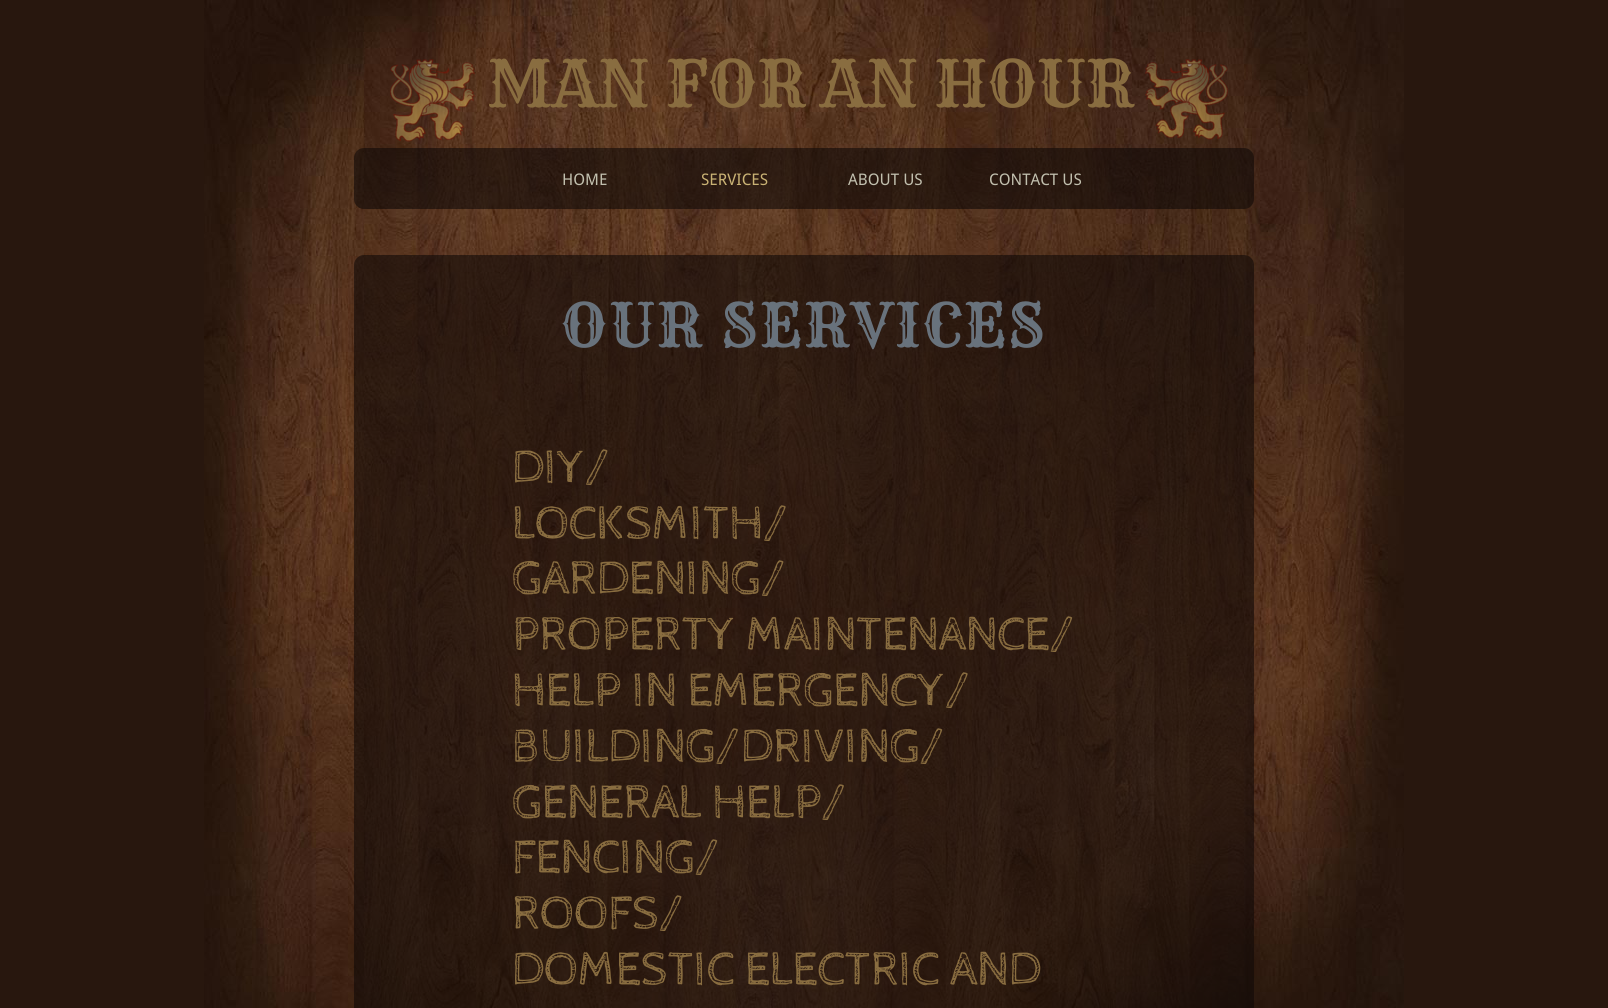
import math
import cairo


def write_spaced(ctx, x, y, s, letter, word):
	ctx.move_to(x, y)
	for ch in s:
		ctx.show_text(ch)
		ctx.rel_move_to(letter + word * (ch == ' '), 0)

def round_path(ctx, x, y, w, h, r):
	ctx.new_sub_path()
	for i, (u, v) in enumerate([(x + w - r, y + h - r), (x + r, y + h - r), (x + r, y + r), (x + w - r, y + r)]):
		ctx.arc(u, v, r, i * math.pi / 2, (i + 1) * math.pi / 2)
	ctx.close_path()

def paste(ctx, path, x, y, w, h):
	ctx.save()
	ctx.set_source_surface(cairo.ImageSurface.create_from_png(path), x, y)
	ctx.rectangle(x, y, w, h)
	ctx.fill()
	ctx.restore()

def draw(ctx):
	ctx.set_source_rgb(0.157, 0.09, 0.055)
	ctx.paint()
	paste(ctx, 'media/1.png', 204, 0, 1200, 1008)
	paste(ctx, 'media/2.png', 390, 59, 85, 83)
	ctx.select_font_face('Rye')
	ctx.set_font_size(64)
	ctx.set_source_rgb(0.537, 0.427, 0.251)
	ctx.move_to(487, 107)
	ctx.show_text('MAN FOR AN HOUR')
	paste(ctx, 'media/3.png', 1145, 59, 83, 81)
	ctx.set_source_rgba(0.063, 0.039, 0.027, 0.6)
	round_path(ctx, 354, 148, 900, 61, 10)
	ctx.fill()
	ctx.select_font_face('Droid Sans')
	ctx.set_font_size(16)
	ctx.set_source_rgb(0.757, 0.749, 0.682)
	ctx.move_to(562, 185)
	ctx.show_text('HOME')
	ctx.set_source_rgb(0.788, 0.698, 0.455)
	ctx.move_to(701, 185)
	ctx.show_text('SERVICES')
	ctx.set_source_rgb(0.757, 0.749, 0.682)
	ctx.move_to(848, 185)
	ctx.show_text('ABOUT US')
	ctx.move_to(989, 185)
	ctx.show_text('CONTACT US')
	ctx.set_source_rgba(0.063, 0.039, 0.027, 0.6)
	ctx.new_path()
	ctx.move_to(364, 255)
	ctx.line_to(1244, 255)
	ctx.curve_to(1249.5, 255, 1254, 259.5, 1254, 265)
	ctx.line_to(1254, 1008)
	ctx.line_to(354, 1008)
	ctx.line_to(354, 265)
	ctx.curve_to(354, 259.5, 358.5, 255, 364, 255)
	ctx.close_path()
	ctx.fill()
	ctx.select_font_face('Rye')
	ctx.set_font_size(60)
	ctx.set_source_rgb(0.408, 0.447, 0.486)
	write_spaced(ctx, 561, 347, 'OUR SERVICES', 2, 0)
	ctx.select_font_face('Cabin Sketch')
	ctx.set_font_size(48)
	ctx.set_source_rgb(0.537, 0.427, 0.251)
	for x, y, s in [
		(512, 482, 'DIY/'),
		(512, 538, 'LOCKSMITH/'),
		(512, 593, 'GARDENING/'),
		(512, 649, 'PROPERTY MAINTENANCE/'),
		(512, 705, 'HELP IN EMERGENCY/'),
		(512, 761, 'BUILDING/DRIVING/'),
		(512, 817, 'GENERAL HELP/'),
		(512, 872, 'FENCING/'),
		(512, 928, 'ROOFS/'),
		(512, 984, 'DOMESTIC ELECTRIC AND'),
	]:
		ctx.move_to(x, y)
		ctx.show_text(s)


surface = cairo.ImageSurface(cairo.FORMAT_RGB24, 1608, 1008)
ctx = cairo.Context(surface)
options = cairo.FontOptions()
options.set_hint_metrics(cairo.HINT_METRICS_OFF)
options.set_hint_style(cairo.HINT_STYLE_NONE)
ctx.set_font_options(options)
ctx.set_miter_limit(4)
draw(ctx)
surface.write_to_png('image.png')
